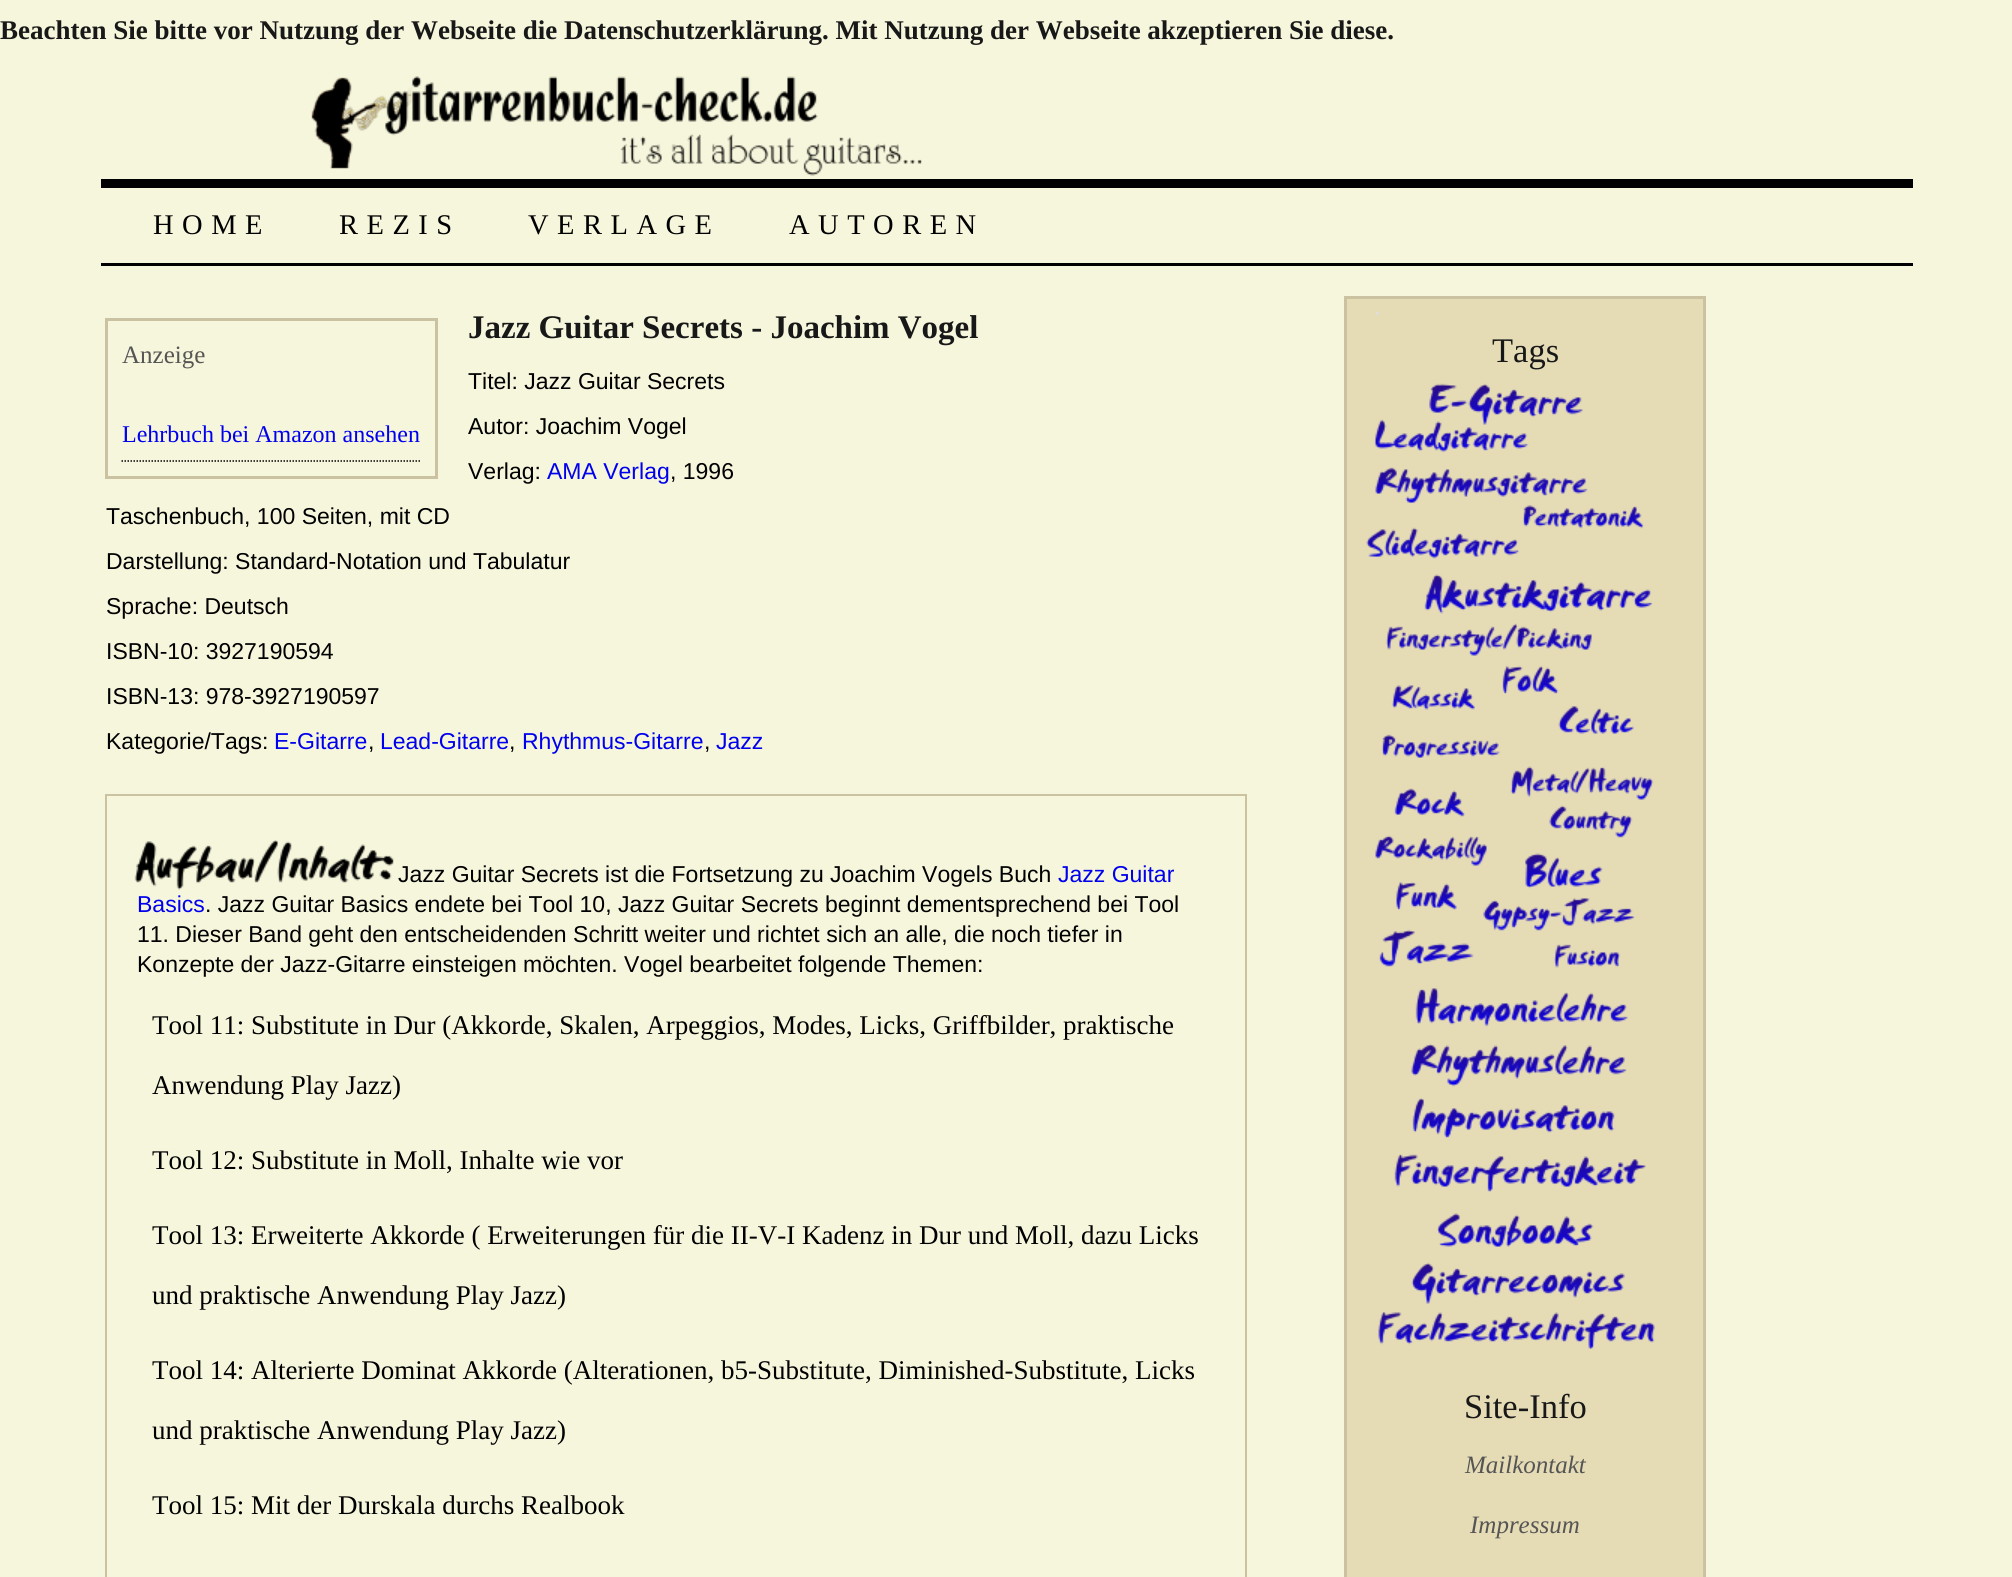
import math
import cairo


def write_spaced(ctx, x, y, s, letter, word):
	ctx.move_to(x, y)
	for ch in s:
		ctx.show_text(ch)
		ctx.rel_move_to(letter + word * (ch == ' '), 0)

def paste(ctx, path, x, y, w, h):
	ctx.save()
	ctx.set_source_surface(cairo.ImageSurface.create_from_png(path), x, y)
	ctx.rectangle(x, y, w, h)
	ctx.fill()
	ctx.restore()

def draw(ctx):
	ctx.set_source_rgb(0.961, 0.961, 0.863)
	ctx.paint()
	ctx.select_font_face('Liberation Serif', cairo.FONT_SLANT_NORMAL, cairo.FONT_WEIGHT_BOLD)
	ctx.set_font_size(27)
	ctx.set_source_rgb(0.094, 0.094, 0.094)
	ctx.move_to(0, 39)
	ctx.show_text('Beachten Sie bitte vor Nutzung der Webseite die Datenschutzerklärung. Mit Nutzung der Webseite akzeptieren Sie diese.')
	paste(ctx, 'media/1.png', 311, 76, 611, 100)
	ctx.set_source_rgb(0, 0, 0)
	ctx.rectangle(101, 179, 1812, 9)
	ctx.fill()
	ctx.rectangle(101, 263, 1812, 3)
	ctx.fill()
	ctx.select_font_face('Liberation Serif')
	ctx.set_font_size(28.5)
	for x, y, s in [
		(153, 234, 'HOME'),
		(339, 234, 'REZIS'),
		(528, 234, 'VERLAGE'),
		(789, 234, 'AUTOREN'),
	]:
		write_spaced(ctx, x, y, s, 8.5, 0)
	ctx.select_font_face('Liberation Serif', cairo.FONT_SLANT_NORMAL, cairo.FONT_WEIGHT_BOLD)
	ctx.set_font_size(33)
	ctx.set_source_rgb(0.094, 0.094, 0.094)
	ctx.move_to(468, 338)
	ctx.show_text('Jazz Guitar Secrets - Joachim Vogel')
	ctx.rectangle(106.5, 319.5, 330, 158)
	ctx.set_source_rgb(0.792, 0.761, 0.627)
	ctx.set_line_width(3)
	ctx.stroke()
	ctx.select_font_face('Liberation Serif')
	ctx.set_font_size(25)
	ctx.set_source_rgb(0.333, 0.333, 0.333)
	ctx.move_to(122, 363)
	ctx.show_text('Anzeige')
	ctx.new_path()
	ctx.move_to(121.5, 461)
	ctx.line_to(421.5, 461)
	ctx.set_source_rgb(0, 0, 0)
	ctx.set_line_width(1.5)
	ctx.set_dash([1.5, 1.5])
	ctx.stroke()
	ctx.set_font_size(24)
	ctx.set_source_rgb(0, 0, 0.933)
	ctx.move_to(122, 442)
	ctx.show_text('Lehrbuch bei Amazon ansehen')
	ctx.select_font_face('Liberation Sans')
	ctx.set_font_size(23)
	ctx.set_source_rgb(0, 0, 0)
	for x, y, s in [
		(468, 389, 'Titel: Jazz Guitar Secrets'),
		(468, 434, 'Autor: Joachim Vogel'),
		(468, 479, 'Verlag:'),
	]:
		ctx.move_to(x, y)
		ctx.show_text(s)
	ctx.set_source_rgb(0, 0, 0.933)
	ctx.move_to(547, 479)
	ctx.show_text('AMA Verlag')
	ctx.set_source_rgb(0, 0, 0)
	for x, y, s in [
		(670, 479, ', 1996'),
		(106, 524, 'Taschenbuch, 100 Seiten, mit CD'),
		(106, 569, 'Darstellung: Standard-Notation und Tabulatur'),
		(106, 614, 'Sprache: Deutsch'),
		(106, 659, 'ISBN-10: 3927190594'),
		(106, 704, 'ISBN-13: 978-3927190597'),
		(106, 749, 'Kategorie/Tags:'),
	]:
		ctx.move_to(x, y)
		ctx.show_text(s)
	ctx.set_source_rgb(0, 0, 0.933)
	ctx.move_to(274, 749)
	ctx.show_text('E-Gitarre')
	ctx.set_source_rgb(0, 0, 0)
	ctx.move_to(368, 749)
	ctx.show_text(',')
	ctx.set_source_rgb(0, 0, 0.933)
	ctx.move_to(380, 749)
	ctx.show_text('Lead-Gitarre')
	ctx.set_source_rgb(0, 0, 0)
	ctx.move_to(509, 749)
	ctx.show_text(',')
	ctx.set_source_rgb(0, 0, 0.933)
	ctx.move_to(522, 749)
	ctx.show_text('Rhythmus-Gitarre')
	ctx.set_source_rgb(0, 0, 0)
	ctx.move_to(704, 749)
	ctx.show_text(',')
	ctx.set_source_rgb(0, 0, 0.933)
	ctx.move_to(716, 749)
	ctx.show_text('Jazz')
	ctx.rectangle(106, 795, 1140, 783)
	ctx.set_source_rgb(0.792, 0.761, 0.627)
	ctx.set_line_width(2)
	ctx.set_dash([])
	ctx.stroke()
	paste(ctx, 'media/2.png', 134, 840, 260, 50)
	ctx.set_source_rgb(0, 0, 0)
	ctx.move_to(398, 882)
	ctx.show_text('Jazz Guitar Secrets ist die Fortsetzung zu Joachim Vogels Buch')
	ctx.set_source_rgb(0, 0, 0.933)
	ctx.move_to(1058, 882)
	ctx.show_text('Jazz Guitar')
	ctx.move_to(137, 912)
	ctx.show_text('Basics')
	ctx.set_source_rgb(0, 0, 0)
	for x, y, s in [
		(205, 912, '. Jazz Guitar Basics endete bei Tool 10, Jazz Guitar Secrets beginnt dementsprechend bei Tool'),
		(137, 942, '11. Dieser Band geht den entscheidenden Schritt weiter und richtet sich an alle, die noch tiefer in'),
		(137, 972, 'Konzepte der Jazz-Gitarre einsteigen möchten. Vogel bearbeitet folgende Themen:'),
	]:
		ctx.move_to(x, y)
		ctx.show_text(s)
	ctx.select_font_face('Liberation Serif')
	ctx.set_font_size(27)
	for x, y, s in [
		(152, 1034, 'Tool 11: Substitute in Dur (Akkorde, Skalen, Arpeggios, Modes, Licks, Griffbilder, praktische'),
		(152, 1094, 'Anwendung Play Jazz)'),
		(152, 1169, 'Tool 12: Substitute in Moll, Inhalte wie vor'),
		(152, 1244, 'Tool 13: Erweiterte Akkorde ( Erweiterungen für die II-V-I Kadenz in Dur und Moll, dazu Licks'),
		(152, 1304, 'und praktische Anwendung Play Jazz)'),
		(152, 1379, 'Tool 14: Alterierte Dominat Akkorde (Alterationen, b5-Substitute, Diminished-Substitute, Licks'),
		(152, 1439, 'und praktische Anwendung Play Jazz)'),
		(152, 1514, 'Tool 15: Mit der Durskala durchs Realbook'),
	]:
		ctx.move_to(x, y)
		ctx.show_text(s)
	ctx.set_source_rgb(0.898, 0.863, 0.71)
	ctx.rectangle(1345.5, 297.5, 359, 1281)
	ctx.fill_preserve()
	ctx.set_source_rgb(0.792, 0.761, 0.627)
	ctx.set_line_width(3)
	ctx.stroke()
	ctx.set_source_rgb(0.871, 0.871, 0.843)
	ctx.rectangle(1376, 312, 3, 3)
	ctx.fill()
	ctx.set_font_size(34.5)
	ctx.set_source_rgb(0.094, 0.094, 0.094)
	ctx.move_to(1492, 362)
	ctx.show_text('Tags')
	paste(ctx, 'media/3.png', 1366, 383, 288, 585)
	paste(ctx, 'media/4.png', 1378, 988, 277, 361)
	ctx.move_to(1464, 1418)
	ctx.show_text('Site-Info')
	ctx.select_font_face('Liberation Serif', cairo.FONT_SLANT_ITALIC)
	ctx.set_font_size(25)
	ctx.set_source_rgb(0.333, 0.333, 0.333)
	ctx.move_to(1465, 1473)
	ctx.show_text('Mailkontakt')
	ctx.move_to(1470, 1533)
	ctx.show_text('Impressum')


surface = cairo.ImageSurface(cairo.FORMAT_RGB24, 2012, 1577)
ctx = cairo.Context(surface)
options = cairo.FontOptions()
options.set_hint_metrics(cairo.HINT_METRICS_OFF)
options.set_hint_style(cairo.HINT_STYLE_NONE)
ctx.set_font_options(options)
ctx.set_miter_limit(4)
draw(ctx)
surface.write_to_png('image.png')
